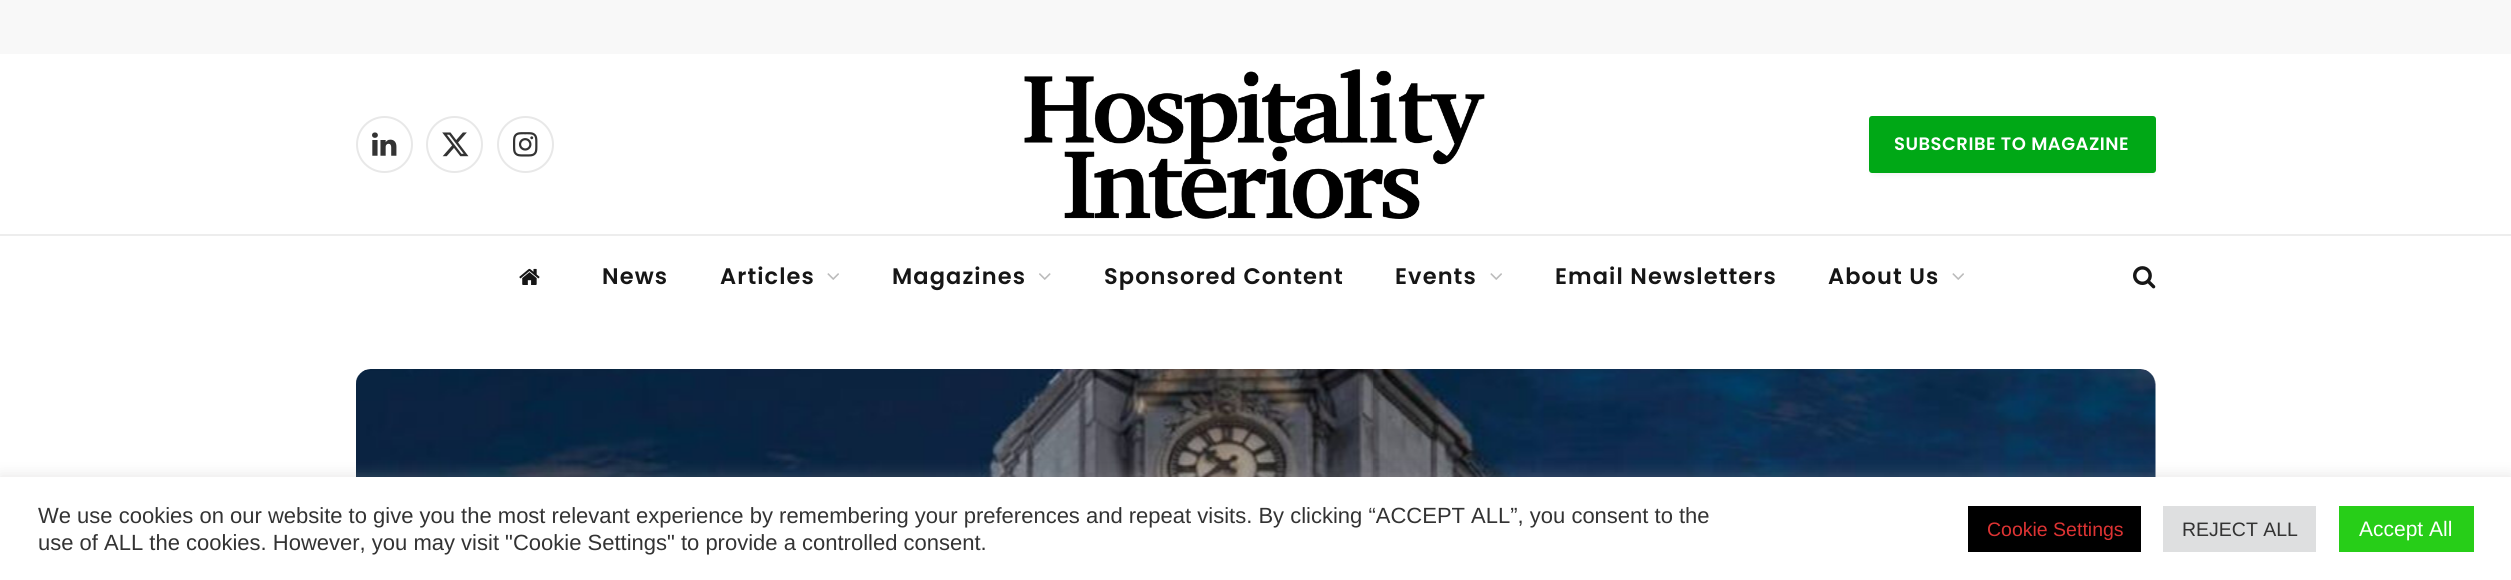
import math
import cairo


def write_spaced(ctx, x, y, s, letter, word):
	ctx.move_to(x, y)
	for ch in s:
		ctx.show_text(ch)
		ctx.rel_move_to(letter + word * (ch == ' '), 0)

def round_path(ctx, x, y, w, h, r):
	ctx.new_sub_path()
	for i, (u, v) in enumerate([(x + w - r, y + h - r), (x + r, y + h - r), (x + r, y + r), (x + w - r, y + r)]):
		ctx.arc(u, v, r, i * math.pi / 2, (i + 1) * math.pi / 2)
	ctx.close_path()

def blur_box(ctx, x, y, w, h, r, blur, alpha):
	ctx.push_group_with_content(cairo.CONTENT_ALPHA)
	ctx.set_operator(cairo.OPERATOR_SOURCE)
	for i in range(15, -16, -2):
		e = blur * i / 6
		if min(w, h) + 2 * e > 0:
			ctx.set_source_rgba(0, 0, 0, alpha * math.erfc((i - 1) / 8.5) / 2)
			round_path(ctx, x - e, y - e, w + 2 * e, h + 2 * e, max(0, min(r + e + blur * .6, min(w, h) / 2 + e)))
			ctx.fill()
	ctx.mask(ctx.pop_group())

def paste(ctx, path, x, y, w, h):
	ctx.save()
	ctx.set_source_surface(cairo.ImageSurface.create_from_png(path), x, y)
	ctx.rectangle(x, y, w, h)
	ctx.fill()
	ctx.restore()

def draw(ctx):
	ctx.set_source_rgb(1, 1, 1)
	ctx.paint()
	ctx.set_source_rgb(0.969, 0.969, 0.969)
	ctx.rectangle(0, 0, 2511, 54)
	ctx.fill()
	ctx.arc(384.5, 144.5, 27.5, 0, 2 * math.pi)
	ctx.set_source_rgb(0.91, 0.91, 0.91)
	ctx.stroke()
	paste(ctx, 'media/1.png', 372, 132, 25, 24)
	ctx.arc(454.5, 144.5, 27.5, 0, 2 * math.pi)
	ctx.stroke()
	paste(ctx, 'media/2.png', 442, 132, 27, 25)
	ctx.arc(525.5, 144.5, 27.5, 0, 2 * math.pi)
	ctx.stroke()
	paste(ctx, 'media/3.png', 513, 132, 25, 25)
	paste(ctx, 'media/4.png', 1024, 69, 461, 150)
	ctx.set_source_rgb(0, 0, 0)
	blur_box(ctx, 1875, 125, 275, 45, 0, 5, 0.16)
	ctx.set_source_rgb(0, 0.659, 0.086)
	round_path(ctx, 1869, 116, 287, 57, 3)
	ctx.fill()
	ctx.select_font_face('Poppins SemiBold')
	ctx.set_font_size(18)
	ctx.set_source_rgb(1, 1, 1)
	write_spaced(ctx, 1894, 150, 'SUBSCRIBE TO MAGAZINE', 0.5, 0)
	ctx.set_source_rgb(0.929, 0.929, 0.929)
	ctx.rectangle(0, 234, 2511, 2)
	ctx.fill()
	paste(ctx, 'media/5.png', 519, 268, 21, 17)
	ctx.set_font_size(22.5)
	ctx.set_source_rgb(0.086, 0.086, 0.086)
	write_spaced(ctx, 602, 284, 'News', 1.1, 0)
	write_spaced(ctx, 720, 284, 'Articles', 1.1, 0)
	paste(ctx, 'media/6.png', 827, 273, 12, 7)
	write_spaced(ctx, 892, 284, 'Magazines', 1.1, 0)
	paste(ctx, 'media/7.png', 1039, 273, 12, 7)
	write_spaced(ctx, 1104, 284, 'Sponsored Content', 1.1, 0)
	write_spaced(ctx, 1395, 284, 'Events', 1.1, 0)
	paste(ctx, 'media/6.png', 1490, 273, 12, 7)
	write_spaced(ctx, 1555, 284, 'Email Newsletters', 1.1, 0)
	write_spaced(ctx, 1828, 284, 'About Us', 1.1, 0)
	paste(ctx, 'media/6.png', 1952, 273, 12, 7)
	paste(ctx, 'media/8.png', 2133, 266, 23, 23)
	paste(ctx, 'media/9.png', 356, 369, 1800, 108)
	ctx.set_source_rgb(0.675, 0.671, 0.671)
	blur_box(ctx, 0, 476, 2511, 103, 0, 7.5, 0.3)
	ctx.set_source_rgb(1, 1, 1)
	ctx.rectangle(0, 477, 2511, 103)
	ctx.fill()
	ctx.select_font_face('Liberation Sans')
	ctx.set_font_size(22)
	ctx.set_source_rgb(0.2, 0.2, 0.2)
	ctx.move_to(38, 523)
	ctx.show_text('We use cookies on our website to give you the most relevant experience by remembering your preferences and repeat visits. By clicking “ACCEPT ALL”, you consent to the')
	ctx.move_to(38, 550)
	ctx.show_text('use of ALL the cookies. However, you may visit "Cookie Settings" to provide a controlled consent.')
	ctx.set_source_rgb(0, 0, 0)
	ctx.rectangle(1968, 506, 173, 46)
	ctx.fill()
	ctx.set_font_size(19.5)
	ctx.set_source_rgb(0.867, 0.2, 0.2)
	ctx.move_to(1987, 536)
	ctx.show_text('Cookie Settings')
	ctx.set_source_rgb(0.871, 0.875, 0.878)
	ctx.rectangle(2163, 506, 153, 46)
	ctx.fill()
	ctx.set_source_rgb(0.2, 0.2, 0.2)
	ctx.move_to(2182, 536)
	ctx.show_text('REJECT ALL')
	ctx.set_source_rgb(0.153, 0.808, 0.094)
	ctx.rectangle(2339, 506, 135, 46)
	ctx.fill()
	ctx.set_font_size(21)
	ctx.set_source_rgb(1, 1, 1)
	ctx.move_to(2359, 536)
	ctx.show_text('Accept All')


surface = cairo.ImageSurface(cairo.FORMAT_RGB24, 2511, 580)
ctx = cairo.Context(surface)
options = cairo.FontOptions()
options.set_hint_metrics(cairo.HINT_METRICS_OFF)
options.set_hint_style(cairo.HINT_STYLE_NONE)
ctx.set_font_options(options)
ctx.set_miter_limit(4)
draw(ctx)
surface.write_to_png('image.png')
